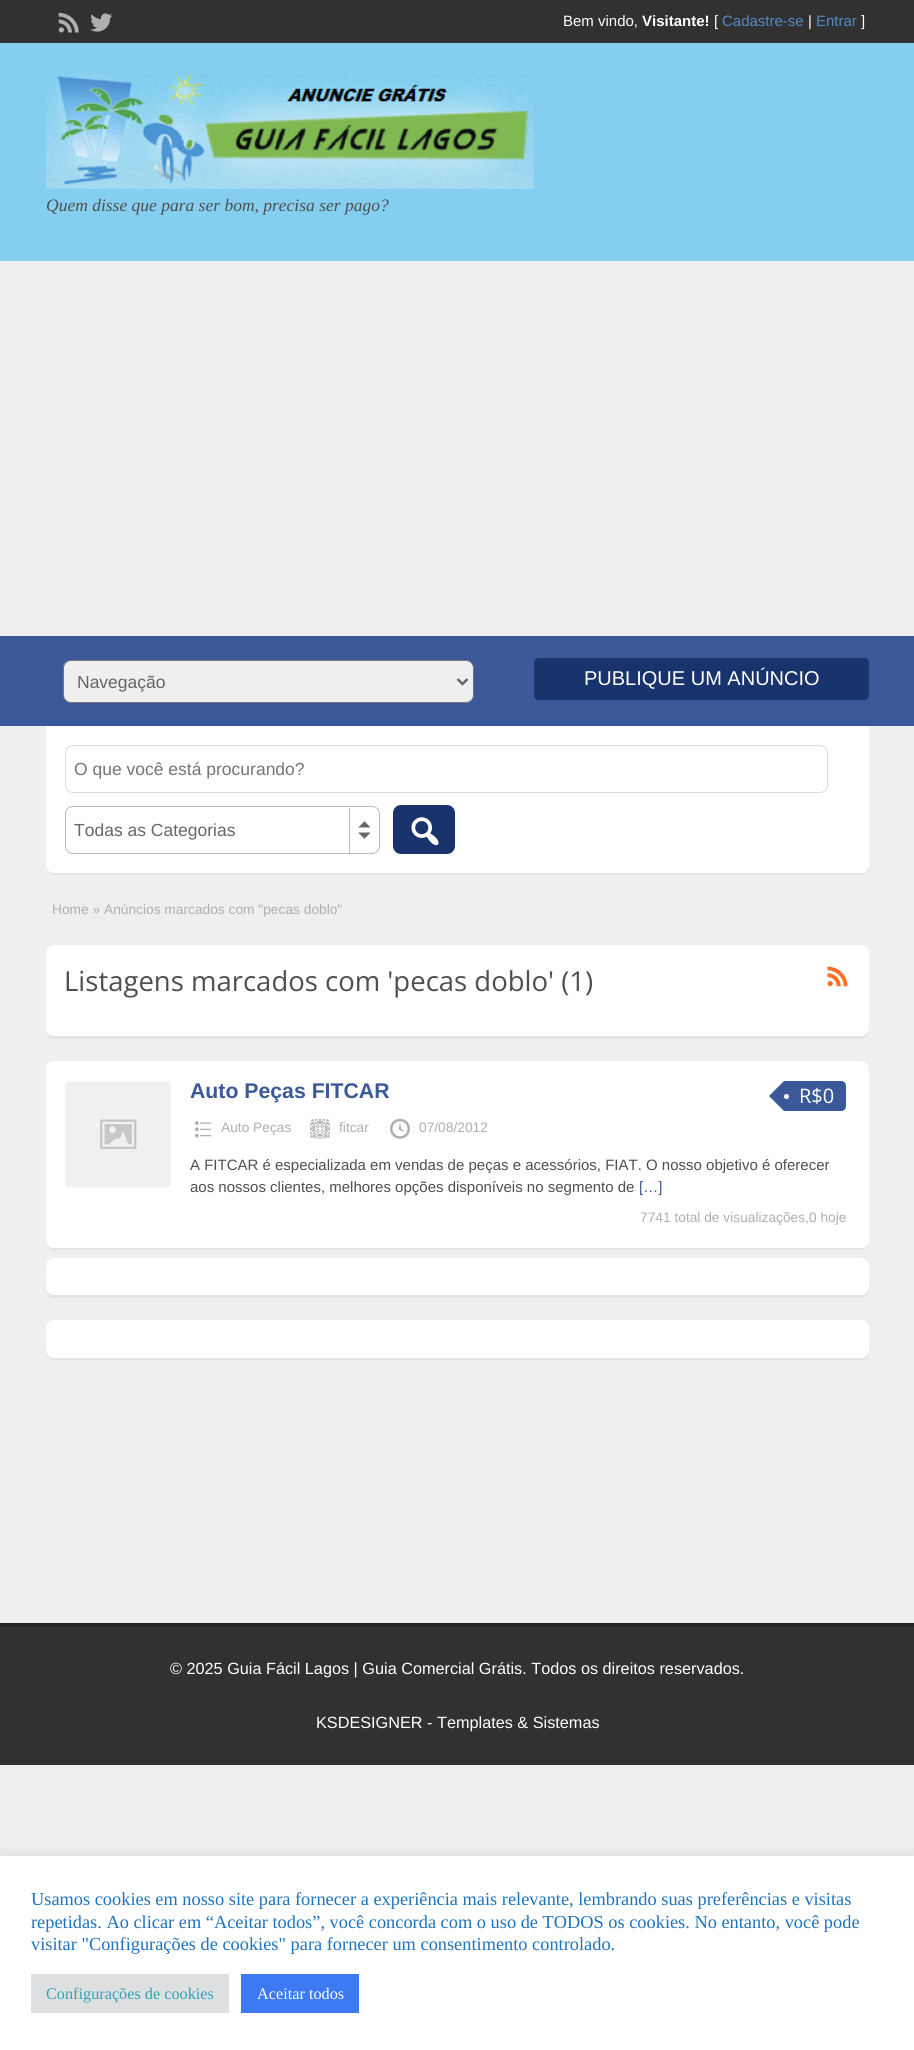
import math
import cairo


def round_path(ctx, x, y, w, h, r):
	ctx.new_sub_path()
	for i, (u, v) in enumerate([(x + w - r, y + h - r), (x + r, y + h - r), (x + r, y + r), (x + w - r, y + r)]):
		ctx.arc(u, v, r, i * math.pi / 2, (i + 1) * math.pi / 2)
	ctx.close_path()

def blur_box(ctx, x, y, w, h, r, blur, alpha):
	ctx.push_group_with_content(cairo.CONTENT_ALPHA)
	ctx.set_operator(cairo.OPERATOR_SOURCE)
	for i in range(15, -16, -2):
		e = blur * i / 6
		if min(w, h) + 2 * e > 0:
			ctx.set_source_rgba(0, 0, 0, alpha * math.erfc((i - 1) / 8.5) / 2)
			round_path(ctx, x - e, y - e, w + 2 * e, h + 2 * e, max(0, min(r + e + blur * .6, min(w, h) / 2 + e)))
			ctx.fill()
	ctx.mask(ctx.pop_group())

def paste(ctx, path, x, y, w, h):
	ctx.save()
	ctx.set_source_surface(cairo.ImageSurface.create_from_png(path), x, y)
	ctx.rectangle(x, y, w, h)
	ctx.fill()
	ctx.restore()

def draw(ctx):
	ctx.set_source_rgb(0.937, 0.937, 0.937)
	ctx.paint()
	ctx.set_source_rgb(0.192, 0.192, 0.192)
	ctx.rectangle(0, 0, 914, 43)
	ctx.fill()
	paste(ctx, 'media/1.png', 58, 12, 21, 21)
	paste(ctx, 'media/2.png', 90, 13, 23, 19)
	ctx.select_font_face('Liberation Sans')
	ctx.set_font_size(15)
	ctx.set_source_rgb(1, 1, 1)
	ctx.move_to(563, 26)
	ctx.show_text('Bem vindo,')
	ctx.select_font_face('Liberation Sans', cairo.FONT_SLANT_NORMAL, cairo.FONT_WEIGHT_BOLD)
	ctx.move_to(642, 26)
	ctx.show_text('Visitante!')
	ctx.select_font_face('Liberation Sans')
	ctx.move_to(714, 26)
	ctx.show_text('[')
	ctx.set_source_rgb(0.322, 0.545, 0.765)
	ctx.move_to(722, 26)
	ctx.show_text('Cadastre-se')
	ctx.set_source_rgb(1, 1, 1)
	ctx.move_to(808, 26)
	ctx.show_text('|')
	ctx.set_source_rgb(0.322, 0.545, 0.765)
	ctx.move_to(816, 26)
	ctx.show_text('Entrar')
	ctx.set_source_rgb(1, 1, 1)
	ctx.move_to(861, 26)
	ctx.show_text(']')
	ctx.set_source_rgb(0.518, 0.808, 0.937)
	ctx.rectangle(0, 43, 914, 218)
	ctx.fill()
	paste(ctx, 'media/3.png', 46, 74, 488, 115)
	ctx.select_font_face('Liberation Serif', cairo.FONT_SLANT_ITALIC)
	ctx.set_font_size(17.5)
	ctx.set_source_rgb(0.31, 0.31, 0.31)
	ctx.move_to(46, 211)
	ctx.show_text('Quem disse que para ser bom, precisa ser pago?')
	ctx.set_source_rgb(0.231, 0.349, 0.596)
	ctx.rectangle(0, 636, 914, 90)
	ctx.fill()
	ctx.set_source_rgb(0.937, 0.937, 0.937)
	round_path(ctx, 63.5, 660.5, 410, 42, 7.5)
	ctx.fill_preserve()
	ctx.set_source_rgb(0.463, 0.463, 0.463)
	ctx.set_line_width(1)
	ctx.stroke()
	ctx.new_path()
	ctx.move_to(457.5, 679)
	ctx.line_to(462.5, 684)
	ctx.line_to(467.5, 679)
	ctx.set_source_rgb(0.4, 0.4, 0.4)
	ctx.set_line_width(2.5)
	ctx.stroke()
	ctx.select_font_face('Liberation Sans')
	ctx.move_to(77, 688)
	ctx.show_text('Navegação')
	ctx.set_source_rgb(0.098, 0.204, 0.424)
	round_path(ctx, 534, 658, 335, 42, 5)
	ctx.fill()
	ctx.set_font_size(20)
	ctx.set_source_rgb(1, 1, 1)
	ctx.move_to(584, 685)
	ctx.show_text('PUBLIQUE UM ANÚNCIO')
	ctx.set_source_rgb(0.89, 0.894, 0.906)
	ctx.new_path()
	ctx.move_to(46, 729)
	ctx.line_to(46, 867)
	ctx.curve_to(46, 871, 50, 875, 54, 875)
	ctx.line_to(861, 875)
	ctx.curve_to(865, 875, 869, 871, 869, 867)
	ctx.line_to(869, 729)
	ctx.line_to(869, 865)
	ctx.curve_to(869, 869, 865, 872, 861, 872)
	ctx.line_to(54, 872)
	ctx.curve_to(50, 872, 46, 869, 46, 865)
	ctx.close_path()
	ctx.fill()
	ctx.set_source_rgb(1, 1, 1)
	ctx.new_path()
	ctx.move_to(46, 726)
	ctx.line_to(869, 726)
	ctx.line_to(869, 865)
	ctx.curve_to(869, 869.5, 865.5, 873, 861, 873)
	ctx.line_to(54, 873)
	ctx.curve_to(49.5, 873, 46, 869.5, 46, 865)
	ctx.close_path()
	ctx.fill()
	round_path(ctx, 65.5, 745.5, 762, 47, 7.5)
	ctx.set_source_rgb(0.859, 0.859, 0.859)
	ctx.set_line_width(1)
	ctx.stroke()
	ctx.set_font_size(17.5)
	ctx.set_source_rgb(0.459, 0.459, 0.459)
	ctx.move_to(74, 775)
	ctx.show_text('O que você está procurando?')
	round_path(ctx, 65.5, 806.5, 314, 47, 7.5)
	ctx.set_source_rgb(0.733, 0.733, 0.733)
	ctx.stroke()
	ctx.set_source_rgb(0.4, 0.4, 0.4)
	ctx.move_to(74, 836)
	ctx.show_text('Todas as Categorias')
	paste(ctx, 'media/4.png', 358, 821, 12, 18)
	ctx.set_source_rgb(0.733, 0.733, 0.733)
	ctx.rectangle(349, 808, 1, 45)
	ctx.fill()
	ctx.set_source_rgb(0.098, 0.204, 0.424)
	round_path(ctx, 393, 805, 62, 49, 8)
	ctx.fill()
	paste(ctx, 'media/5.png', 411, 817, 28, 29)
	ctx.set_font_size(13.75)
	ctx.set_source_rgb(0.686, 0.686, 0.686)
	ctx.move_to(52, 914)
	ctx.show_text('Home » Anúncios marcados com "pecas doblo"')
	ctx.set_source_rgb(0.89, 0.894, 0.906)
	ctx.new_path()
	ctx.move_to(46, 954)
	ctx.line_to(46, 1031)
	ctx.curve_to(46, 1035, 50, 1039, 54, 1039)
	ctx.line_to(861, 1039)
	ctx.curve_to(865, 1039, 869, 1035, 869, 1031)
	ctx.line_to(869, 954)
	ctx.line_to(869, 1029)
	ctx.curve_to(869, 1033, 865, 1036, 861, 1036)
	ctx.line_to(54, 1036)
	ctx.curve_to(50, 1036, 46, 1033, 46, 1029)
	ctx.close_path()
	ctx.fill()
	ctx.set_source_rgb(1, 1, 1)
	round_path(ctx, 46, 945, 823, 91, 8)
	ctx.fill()
	ctx.select_font_face('Open Sans')
	ctx.set_font_size(27.5)
	ctx.set_source_rgb(0.31, 0.31, 0.31)
	ctx.move_to(64, 991)
	ctx.show_text('Listagens marcados com \'pecas doblo\' (1)')
	paste(ctx, 'media/6.png', 827, 966, 21, 21)
	ctx.set_source_rgb(0.89, 0.894, 0.906)
	ctx.new_path()
	ctx.move_to(46, 1070)
	ctx.line_to(46, 1242)
	ctx.curve_to(46, 1246, 50, 1250, 54, 1250)
	ctx.line_to(861, 1250)
	ctx.curve_to(865, 1250, 869, 1246, 869, 1242)
	ctx.line_to(869, 1070)
	ctx.line_to(869, 1240)
	ctx.curve_to(869, 1244, 865, 1248, 861, 1248)
	ctx.line_to(54, 1248)
	ctx.curve_to(50, 1248, 46, 1244, 46, 1240)
	ctx.close_path()
	ctx.fill()
	ctx.set_source_rgb(1, 1, 1)
	round_path(ctx, 46, 1061, 823, 187, 8)
	ctx.fill()
	round_path(ctx, 46, 1061, 819, 187, 8)
	ctx.fill()
	paste(ctx, 'media/7.png', 65, 1081, 106, 107)
	ctx.select_font_face('Liberation Sans', cairo.FONT_SLANT_NORMAL, cairo.FONT_WEIGHT_BOLD)
	ctx.set_font_size(21.25)
	ctx.set_source_rgb(0.231, 0.349, 0.596)
	ctx.move_to(190, 1098)
	ctx.show_text('Auto Peças FITCAR')
	ctx.new_path()
	ctx.move_to(784, 1081)
	ctx.line_to(841, 1081)
	ctx.curve_to(844, 1081, 846, 1083, 846, 1086)
	ctx.line_to(846, 1106)
	ctx.curve_to(846, 1109, 844, 1111, 841, 1111)
	ctx.line_to(784, 1111)
	ctx.close_path()
	ctx.fill()
	ctx.new_path()
	ctx.move_to(784, 1081)
	ctx.line_to(784, 1111)
	ctx.line_to(769, 1096)
	ctx.close_path()
	ctx.fill()
	ctx.set_source_rgb(1, 1, 1)
	ctx.arc(786.5, 1096.5, 2.5, 0, 2 * math.pi)
	ctx.fill()
	ctx.select_font_face('Open Sans')
	ctx.set_font_size(20)
	ctx.move_to(799, 1103)
	ctx.show_text('R$0')
	paste(ctx, 'media/8.png', 195, 1121, 17, 17)
	ctx.select_font_face('Liberation Sans')
	ctx.set_font_size(13.75)
	ctx.set_source_rgb(0.686, 0.686, 0.686)
	ctx.move_to(221, 1132)
	ctx.show_text('Auto Peças')
	paste(ctx, 'media/9.png', 310, 1118, 20, 21)
	ctx.move_to(339, 1132)
	ctx.show_text('fitcar')
	paste(ctx, 'media/10.png', 390, 1118, 20, 21)
	ctx.move_to(419, 1132)
	ctx.show_text('07/08/2012')
	ctx.set_font_size(15)
	ctx.set_source_rgb(0.31, 0.31, 0.31)
	ctx.move_to(190, 1170)
	ctx.show_text('A FITCAR é especializada em vendas de peças e acessórios, FIAT. O nosso objetivo é oferecer')
	ctx.move_to(190, 1192)
	ctx.show_text('aos nossos clientes, melhores opções disponíveis no segmento de')
	ctx.set_source_rgb(0.231, 0.349, 0.596)
	ctx.move_to(639, 1192)
	ctx.show_text('[…]')
	ctx.set_font_size(13.75)
	ctx.set_source_rgb(0.686, 0.686, 0.686)
	ctx.move_to(640, 1222)
	ctx.show_text('7741 total de visualizações,0 hoje')
	ctx.set_source_rgb(0.89, 0.894, 0.906)
	ctx.new_path()
	ctx.move_to(46, 1266)
	ctx.line_to(46, 1279)
	ctx.curve_to(46, 1285, 44, 1298, 54, 1298)
	ctx.line_to(861, 1298)
	ctx.curve_to(871, 1298, 869, 1285, 869, 1279)
	ctx.line_to(869, 1266)
	ctx.line_to(869, 1288)
	ctx.curve_to(869, 1292, 865, 1295, 861, 1295)
	ctx.line_to(54, 1295)
	ctx.curve_to(50, 1295, 46, 1292, 46, 1288)
	ctx.close_path()
	ctx.fill()
	ctx.set_source_rgb(1, 1, 1)
	round_path(ctx, 46, 1258, 823, 37, 8)
	ctx.fill()
	ctx.set_source_rgb(0.89, 0.894, 0.906)
	ctx.new_path()
	ctx.move_to(46, 1329)
	ctx.line_to(46, 1342)
	ctx.curve_to(46, 1348, 44, 1360, 54, 1360)
	ctx.line_to(861, 1360)
	ctx.curve_to(871, 1360, 869, 1348, 869, 1342)
	ctx.line_to(869, 1329)
	ctx.line_to(869, 1350)
	ctx.curve_to(869, 1354, 865, 1358, 861, 1358)
	ctx.line_to(54, 1358)
	ctx.curve_to(50, 1358, 46, 1354, 46, 1350)
	ctx.close_path()
	ctx.fill()
	ctx.set_source_rgb(1, 1, 1)
	round_path(ctx, 46, 1320, 823, 38, 8)
	ctx.fill()
	ctx.set_source_rgb(0.192, 0.192, 0.192)
	ctx.rectangle(0, 1627, 914, 138)
	ctx.fill()
	ctx.set_source_rgb(0.145, 0.145, 0.145)
	ctx.rectangle(0, 1623, 914, 4)
	ctx.fill()
	ctx.set_font_size(16.25)
	ctx.set_source_rgb(1, 1, 1)
	ctx.move_to(170, 1674)
	ctx.show_text('© 2025 Guia Fácil Lagos | Guia Comercial Grátis. Todos os direitos reservados.')
	ctx.move_to(316, 1728)
	ctx.show_text('KSDESIGNER - Templates & Sistemas')
	ctx.set_source_rgb(0.675, 0.671, 0.671)
	blur_box(ctx, 0, 1855, 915, 194, 0, 6, 0.3)
	ctx.set_source_rgb(1, 1, 1)
	ctx.rectangle(0, 1856, 914, 194)
	ctx.fill()
	ctx.select_font_face('Liberation Serif')
	ctx.set_font_size(18.35)
	ctx.set_source_rgb(0.118, 0.451, 0.745)
	for x, y, s in [
		(31, 1905, 'Usamos cookies em nosso site para fornecer a experiência mais relevante, lembrando suas preferências e visitas'),
		(31, 1928, 'repetidas. Ao clicar em “Aceitar todos”, você concorda com o uso de TODOS os cookies. No entanto, você pode'),
		(31, 1950, 'visitar "Configurações de cookies" para fornecer um consentimento controlado.'),
	]:
		ctx.move_to(x, y)
		ctx.show_text(s)
	ctx.set_source_rgb(0.871, 0.875, 0.878)
	ctx.rectangle(31, 1974, 198, 39)
	ctx.fill()
	ctx.set_font_size(16.25)
	ctx.set_source_rgb(0.2, 0.631, 0.718)
	ctx.move_to(46, 1999)
	ctx.show_text('Configurações de cookies')
	ctx.set_source_rgb(0.235, 0.475, 0.949)
	ctx.rectangle(241, 1974, 118, 39)
	ctx.fill()
	ctx.set_source_rgb(1, 1, 1)
	ctx.move_to(257, 1999)
	ctx.show_text('Aceitar todos')


surface = cairo.ImageSurface(cairo.FORMAT_RGB24, 914, 2050)
ctx = cairo.Context(surface)
options = cairo.FontOptions()
options.set_hint_metrics(cairo.HINT_METRICS_OFF)
options.set_hint_style(cairo.HINT_STYLE_NONE)
ctx.set_font_options(options)
ctx.set_miter_limit(4)
draw(ctx)
surface.write_to_png('image.png')
